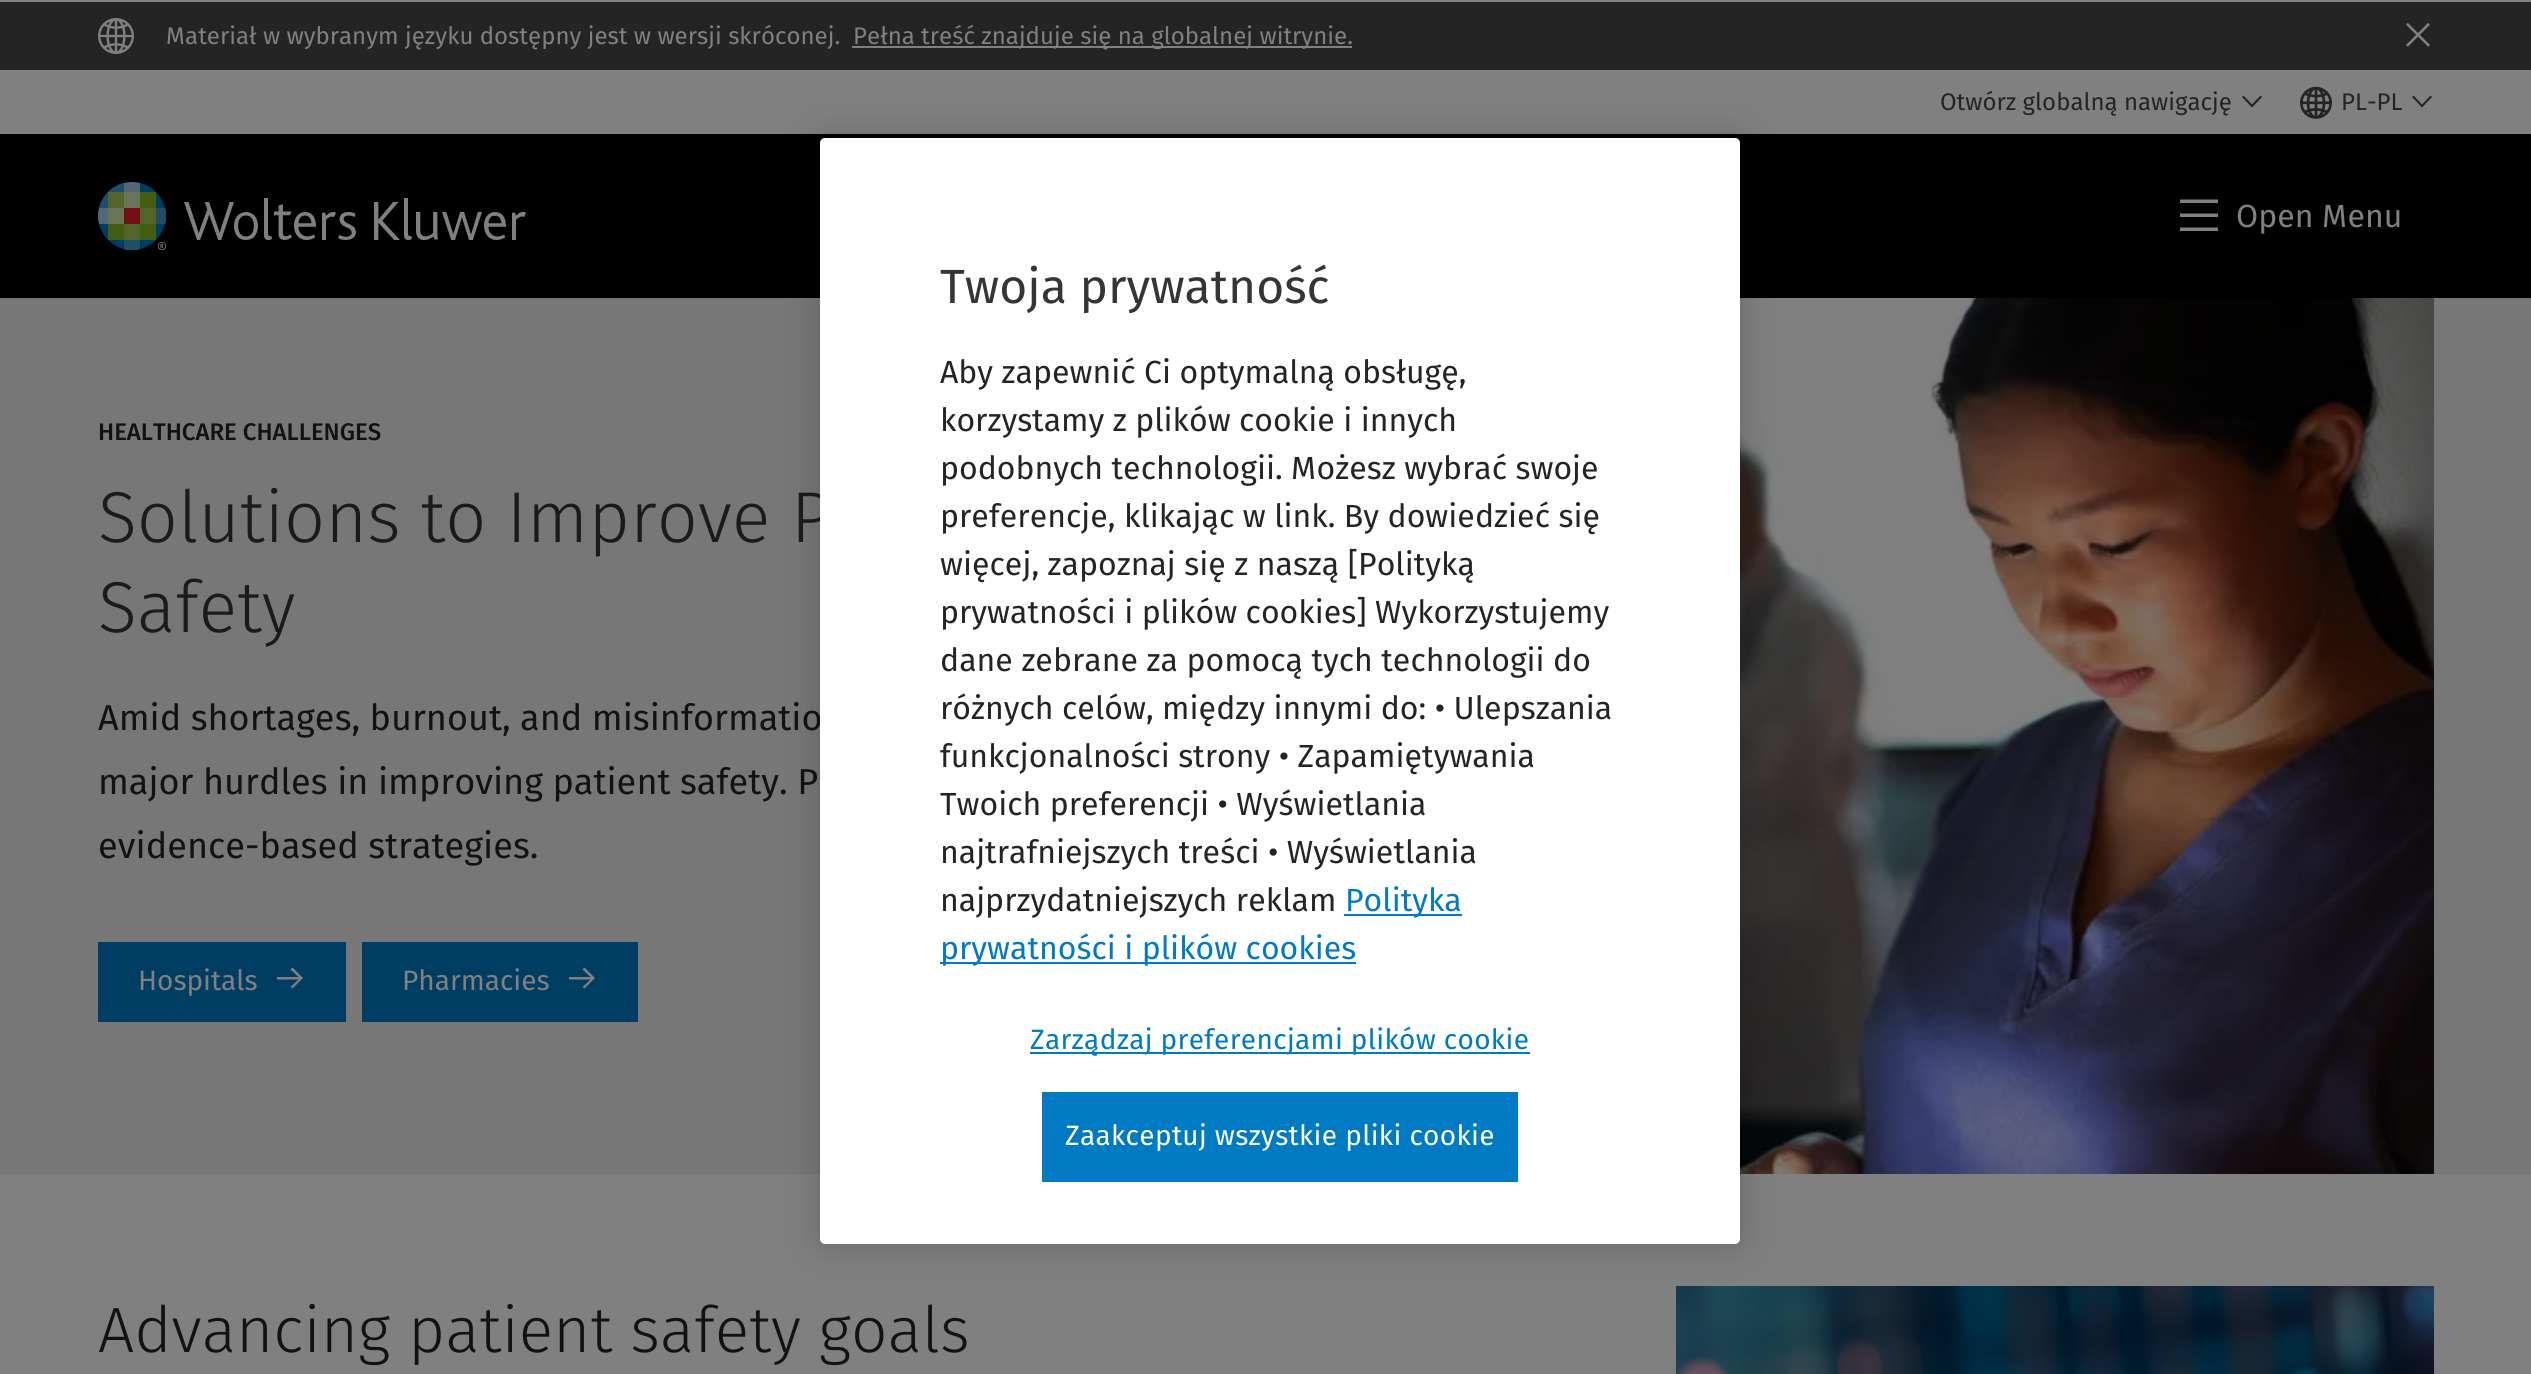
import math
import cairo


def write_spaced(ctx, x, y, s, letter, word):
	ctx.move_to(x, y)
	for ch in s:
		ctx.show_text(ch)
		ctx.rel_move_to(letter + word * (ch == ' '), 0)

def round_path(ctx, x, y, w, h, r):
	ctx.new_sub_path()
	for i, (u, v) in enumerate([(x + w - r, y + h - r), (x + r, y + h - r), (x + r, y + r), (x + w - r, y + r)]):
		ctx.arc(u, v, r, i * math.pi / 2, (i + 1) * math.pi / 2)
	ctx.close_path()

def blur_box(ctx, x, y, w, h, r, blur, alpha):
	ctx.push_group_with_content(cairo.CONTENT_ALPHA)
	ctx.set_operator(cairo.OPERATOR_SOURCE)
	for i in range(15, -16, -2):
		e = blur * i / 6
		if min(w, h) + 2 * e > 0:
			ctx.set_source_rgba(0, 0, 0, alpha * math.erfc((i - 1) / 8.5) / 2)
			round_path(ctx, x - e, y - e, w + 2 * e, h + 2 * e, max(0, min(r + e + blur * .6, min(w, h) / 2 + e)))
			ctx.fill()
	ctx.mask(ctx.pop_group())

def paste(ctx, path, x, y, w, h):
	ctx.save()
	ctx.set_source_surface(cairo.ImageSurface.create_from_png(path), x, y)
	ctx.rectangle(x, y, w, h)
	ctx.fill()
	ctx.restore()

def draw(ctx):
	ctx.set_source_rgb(0.502, 0.502, 0.502)
	ctx.paint()
	ctx.set_source_rgb(0.141, 0.141, 0.141)
	ctx.rectangle(0, 2, 2531, 68)
	ctx.fill()
	paste(ctx, 'media/1.png', 98, 18, 36, 36)
	ctx.select_font_face('Fira Sans')
	ctx.set_font_size(24)
	ctx.set_source_rgb(0.502, 0.502, 0.502)
	ctx.move_to(166, 44)
	ctx.show_text('Materiał w wybranym języku dostępny jest w wersji skróconej.')
	ctx.rectangle(852, 46, 500, 2)
	ctx.fill()
	ctx.move_to(853, 44)
	ctx.show_text('Pełna treść znajduje się na globalnej witrynie.')
	paste(ctx, 'media/2.png', 2406, 22, 24, 25)
	ctx.set_source_rgb(0.141, 0.141, 0.141)
	ctx.move_to(1940, 110)
	ctx.show_text('Otwórz globalną nawigację')
	ctx.new_path()
	ctx.move_to(2242, 97)
	ctx.line_to(2252, 107.5)
	ctx.line_to(2262, 97)
	ctx.line_to(2260.5, 95.5)
	ctx.line_to(2252, 104.5)
	ctx.line_to(2243.5, 95.5)
	ctx.close_path()
	ctx.fill()
	paste(ctx, 'media/3.png', 2300, 86, 32, 33)
	ctx.move_to(2341, 110)
	ctx.show_text('PL-PL')
	ctx.new_path()
	ctx.move_to(2412, 97)
	ctx.line_to(2422, 107.5)
	ctx.line_to(2432, 97)
	ctx.line_to(2430.5, 95.5)
	ctx.line_to(2422, 104.5)
	ctx.line_to(2413.5, 95.5)
	ctx.close_path()
	ctx.fill()
	ctx.set_source_rgb(0, 0, 0)
	ctx.rectangle(0, 134, 2531, 164)
	ctx.fill()
	paste(ctx, 'media/4.png', 98, 182, 428, 68)
	ctx.set_source_rgb(0.502, 0.502, 0.502)
	ctx.new_path()
	ctx.move_to(2180, 199.5)
	ctx.line_to(2180, 203)
	ctx.line_to(2218, 203)
	ctx.line_to(2218, 199.5)
	ctx.close_path()
	ctx.move_to(2180, 217)
	ctx.line_to(2218, 217)
	ctx.line_to(2218, 213.5)
	ctx.line_to(2180, 213.5)
	ctx.close_path()
	ctx.move_to(2180, 231)
	ctx.line_to(2218, 231)
	ctx.line_to(2218, 227.5)
	ctx.line_to(2180, 227.5)
	ctx.close_path()
	ctx.fill()
	ctx.set_font_size(32)
	ctx.move_to(2236, 227)
	ctx.show_text('Open Menu')
	ctx.set_source_rgb(0.467, 0.467, 0.467)
	ctx.rectangle(0, 298, 2531, 876)
	ctx.fill()
	ctx.select_font_face('Fira Sans Medium')
	ctx.set_font_size(24)
	ctx.set_source_rgb(0.071, 0.071, 0.071)
	ctx.move_to(98, 440)
	ctx.show_text('HEALTHCARE CHALLENGES')
	ctx.select_font_face('Fira Sans Light')
	ctx.set_font_size(72)
	ctx.set_source_rgb(0.106, 0.106, 0.106)
	ctx.move_to(98, 542)
	ctx.show_text('Solutions to Improve P')
	ctx.move_to(98, 632)
	ctx.show_text('Safety')
	ctx.select_font_face('Fira Sans')
	ctx.set_font_size(36)
	ctx.set_source_rgb(0.071, 0.071, 0.071)
	for x, y, s in [
		(98, 730, 'Amid shortages, burnout, and misinformatio'),
		(98, 794, 'major hurdles in improving patient safety. P'),
		(98, 858, 'evidence-based strategies.'),
	]:
		ctx.move_to(x, y)
		ctx.show_text(s)
	ctx.set_source_rgb(0, 0.239, 0.384)
	ctx.rectangle(98, 942, 248, 80)
	ctx.fill()
	ctx.set_font_size(28)
	ctx.set_source_rgb(0.502, 0.502, 0.502)
	ctx.move_to(138, 990)
	ctx.show_text('Hospitals')
	ctx.new_path()
	ctx.move_to(292.5, 967.5)
	ctx.line_to(290.5, 969.5)
	ctx.line_to(298.5, 977)
	ctx.line_to(277, 977)
	ctx.line_to(277, 979.5)
	ctx.line_to(298.5, 979.5)
	ctx.line_to(290.5, 987)
	ctx.line_to(292.5, 988.5)
	ctx.line_to(303, 978)
	ctx.close_path()
	ctx.fill()
	ctx.set_source_rgb(0, 0.239, 0.384)
	ctx.rectangle(362, 942, 276, 80)
	ctx.fill()
	ctx.set_source_rgb(0.502, 0.502, 0.502)
	ctx.move_to(402, 990)
	ctx.show_text('Pharmacies')
	ctx.new_path()
	ctx.move_to(584.5, 967.5)
	ctx.line_to(582.5, 969.5)
	ctx.line_to(590.5, 977)
	ctx.line_to(569, 977)
	ctx.line_to(569, 979.5)
	ctx.line_to(590.5, 979.5)
	ctx.line_to(582.5, 987)
	ctx.line_to(584.5, 988.5)
	ctx.line_to(595, 978)
	ctx.close_path()
	ctx.fill()
	paste(ctx, 'media/5.png', 1740, 298, 694, 876)
	ctx.select_font_face('Fira Sans Light')
	ctx.set_font_size(64)
	ctx.set_source_rgb(0.071, 0.071, 0.071)
	ctx.move_to(98, 1352)
	ctx.show_text('Advancing patient safety goals')
	paste(ctx, 'media/6.png', 1676, 1286, 758, 88)
	ctx.set_source_rgb(0, 0, 0)
	blur_box(ctx, 820, 138, 920, 1106, 5, 18, 0.2)
	ctx.set_source_rgb(1, 1, 1)
	round_path(ctx, 820, 138, 920, 1106, 5)
	ctx.fill()
	ctx.select_font_face('Fira Sans')
	ctx.set_font_size(48)
	ctx.set_source_rgb(0.208, 0.208, 0.208)
	ctx.move_to(940, 303)
	ctx.show_text('Twoja prywatność')
	ctx.set_font_size(32)
	ctx.set_source_rgb(0.141, 0.141, 0.141)
	for x, y, s in [
		(940, 383, 'Aby zapewnić Ci optymalną obsługę,'),
		(940, 431, 'korzystamy z plików cookie i innych'),
		(940, 479, 'podobnych technologii. Możesz wybrać swoje'),
		(940, 527, 'preferencje, klikając w link. By dowiedzieć się'),
		(940, 575, 'więcej, zapoznaj się z naszą [Polityką'),
		(940, 623, 'prywatności i plików cookies] Wykorzystujemy'),
		(940, 671, 'dane zebrane za pomocą tych technologii do'),
		(940, 719, 'różnych celów, między innymi do: • Ulepszania'),
		(940, 767, 'funkcjonalności strony • Zapamiętywania'),
		(940, 815, 'Twoich preferencji • Wyświetlania'),
		(940, 863, 'najtrafniejszych treści • Wyświetlania'),
		(940, 911, 'najprzydatniejszych reklam'),
	]:
		ctx.move_to(x, y)
		ctx.show_text(s)
	ctx.set_source_rgb(0, 0.478, 0.765)
	ctx.rectangle(1344, 914, 118, 2)
	ctx.fill()
	ctx.move_to(1345, 911)
	ctx.show_text('Polityka')
	ctx.rectangle(940, 962, 416, 2)
	ctx.fill()
	ctx.move_to(940, 959)
	ctx.show_text('prywatności i plików cookies')
	ctx.rectangle(1030, 1052, 500, 2)
	ctx.fill()
	ctx.set_font_size(28)
	write_spaced(ctx, 1030, 1049, 'Zarządzaj preferencjami plików cookie', 0.3, 0)
	ctx.rectangle(1042, 1092, 476, 90)
	ctx.fill()
	ctx.set_source_rgb(1, 1, 1)
	write_spaced(ctx, 1065, 1145, 'Zaakceptuj wszystkie pliki cookie', 0.3, 0)


surface = cairo.ImageSurface(cairo.FORMAT_RGB24, 2531, 1374)
ctx = cairo.Context(surface)
options = cairo.FontOptions()
options.set_hint_metrics(cairo.HINT_METRICS_OFF)
options.set_hint_style(cairo.HINT_STYLE_NONE)
ctx.set_font_options(options)
ctx.set_miter_limit(4)
draw(ctx)
surface.write_to_png('image.png')
